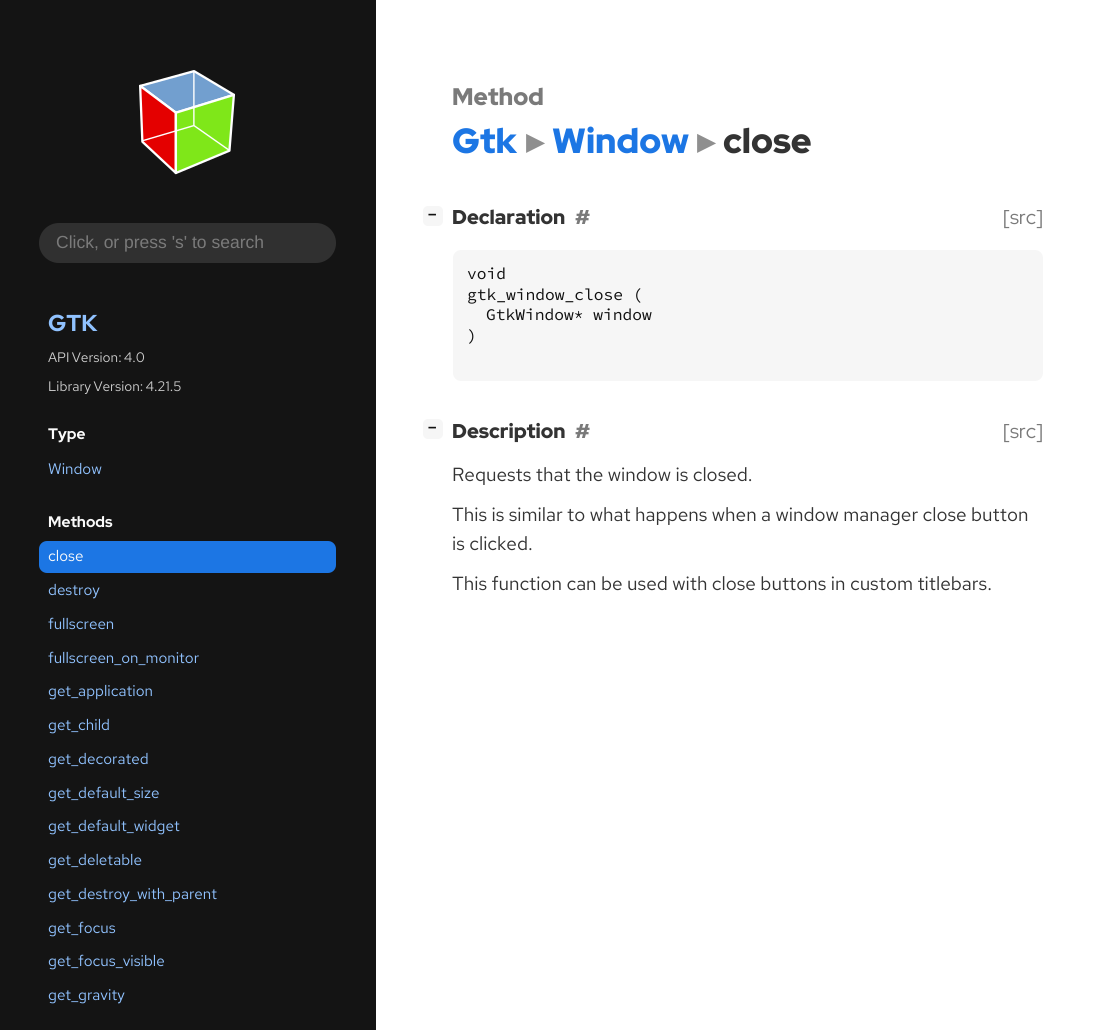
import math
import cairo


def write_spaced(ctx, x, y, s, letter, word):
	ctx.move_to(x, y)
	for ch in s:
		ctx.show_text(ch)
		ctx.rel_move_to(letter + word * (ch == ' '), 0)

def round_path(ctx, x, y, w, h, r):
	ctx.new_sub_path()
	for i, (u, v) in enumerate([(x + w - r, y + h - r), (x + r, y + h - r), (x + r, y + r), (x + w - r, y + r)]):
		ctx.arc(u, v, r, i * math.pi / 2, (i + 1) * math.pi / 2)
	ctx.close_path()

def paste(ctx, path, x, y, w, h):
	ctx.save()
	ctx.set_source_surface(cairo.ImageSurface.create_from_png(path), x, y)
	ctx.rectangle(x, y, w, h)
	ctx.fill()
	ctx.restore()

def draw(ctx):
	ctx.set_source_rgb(1, 1, 1)
	ctx.paint()
	ctx.set_source_rgb(0.082, 0.082, 0.082)
	ctx.rectangle(0, 0, 376, 1030)
	ctx.fill()
	paste(ctx, 'media/1.png', 139, 70, 96, 105)
	ctx.set_source_rgb(0.188, 0.188, 0.188)
	round_path(ctx, 39, 223, 297, 40, 20)
	ctx.fill()
	ctx.select_font_face('Liberation Sans')
	ctx.set_font_size(17.5)
	ctx.set_source_rgb(0.478, 0.478, 0.478)
	ctx.move_to(56, 248)
	ctx.show_text('Click, or press \'s\' to search')
	ctx.select_font_face('Red Hat Display ExtraBold')
	ctx.set_font_size(23)
	ctx.set_source_rgb(0.565, 0.761, 1)
	ctx.move_to(48, 331)
	ctx.show_text('GTK')
	ctx.select_font_face('Red Hat Text')
	ctx.set_font_size(13.75)
	ctx.set_source_rgb(0.8, 0.8, 0.8)
	write_spaced(ctx, 48, 362, 'API Version: 4.0', 0, -1)
	write_spaced(ctx, 48, 391, 'Library Version: 4.21.5', 0, -1)
	ctx.select_font_face('Red Hat Display ExtraBold')
	ctx.set_font_size(15.25)
	ctx.set_source_rgb(0.98, 0.98, 0.98)
	ctx.move_to(48, 439)
	ctx.show_text('Type')
	ctx.select_font_face('Red Hat Text')
	ctx.set_source_rgb(0.565, 0.761, 1)
	ctx.move_to(48, 474)
	ctx.show_text('Window')
	ctx.select_font_face('Red Hat Display ExtraBold')
	ctx.set_source_rgb(0.98, 0.98, 0.98)
	ctx.move_to(48, 527)
	ctx.show_text('Methods')
	ctx.set_source_rgb(0.11, 0.463, 0.894)
	round_path(ctx, 39, 541, 297, 32, 8)
	ctx.fill()
	ctx.select_font_face('Red Hat Text')
	ctx.set_source_rgb(0.98, 0.98, 0.98)
	ctx.move_to(48, 561)
	ctx.show_text('close')
	ctx.set_source_rgb(0.565, 0.761, 1)
	for x, y, s in [
		(48, 595, 'destroy'),
		(48, 629, 'fullscreen'),
		(48, 663, 'fullscreen_on_monitor'),
		(48, 696, 'get_application'),
		(48, 730, 'get_child'),
		(48, 764, 'get_decorated'),
		(48, 798, 'get_default_size'),
		(48, 831, 'get_default_widget'),
		(48, 865, 'get_deletable'),
		(48, 899, 'get_destroy_with_parent'),
		(48, 933, 'get_focus'),
		(48, 966, 'get_focus_visible'),
		(48, 1000, 'get_gravity'),
	]:
		ctx.move_to(x, y)
		ctx.show_text(s)
	ctx.select_font_face('Red Hat Display Black')
	ctx.set_font_size(24)
	ctx.set_source_rgb(0.478, 0.478, 0.478)
	ctx.move_to(452, 105)
	ctx.show_text('Method')
	ctx.set_font_size(35)
	ctx.set_source_rgb(0.11, 0.463, 0.894)
	ctx.move_to(452, 153)
	ctx.show_text('Gtk')
	ctx.select_font_face('DejaVu Sans', cairo.FONT_SLANT_NORMAL, cairo.FONT_WEIGHT_BOLD)
	ctx.set_source_rgb(0.561, 0.561, 0.561)
	ctx.move_to(526, 153)
	ctx.show_text('▸')
	ctx.select_font_face('Red Hat Display Black')
	ctx.set_source_rgb(0.11, 0.463, 0.894)
	ctx.move_to(552, 153)
	ctx.show_text('Window')
	ctx.select_font_face('DejaVu Sans', cairo.FONT_SLANT_NORMAL, cairo.FONT_WEIGHT_BOLD)
	ctx.set_source_rgb(0.561, 0.561, 0.561)
	ctx.move_to(697, 153)
	ctx.show_text('▸')
	ctx.select_font_face('Red Hat Display Black')
	ctx.set_source_rgb(0.2, 0.2, 0.2)
	ctx.move_to(723, 153)
	ctx.show_text('close')
	ctx.set_source_rgb(0.961, 0.961, 0.961)
	round_path(ctx, 423, 206, 20, 20, 5)
	ctx.fill()
	ctx.select_font_face('DejaVu Sans Mono', cairo.FONT_SLANT_NORMAL, cairo.FONT_WEIGHT_BOLD)
	ctx.set_font_size(14)
	ctx.set_source_rgb(0.067, 0.067, 0.067)
	ctx.move_to(428, 219)
	ctx.show_text('−')
	ctx.select_font_face('Red Hat Display Black')
	ctx.set_font_size(20)
	ctx.set_source_rgb(0.2, 0.2, 0.2)
	ctx.move_to(452, 224)
	ctx.show_text('Declaration')
	ctx.set_source_rgb(0.478, 0.478, 0.478)
	ctx.move_to(575, 224)
	ctx.show_text('#')
	ctx.select_font_face('Red Hat Display')
	ctx.move_to(1003, 224)
	ctx.show_text('[src]')
	ctx.set_source_rgb(0.961, 0.961, 0.961)
	round_path(ctx, 453, 250, 590, 131, 8)
	ctx.fill()
	ctx.select_font_face('Source Code Pro')
	ctx.set_font_size(16.25)
	ctx.set_source_rgb(0.067, 0.067, 0.067)
	for x, y, s in [
		(467, 279, 'void'),
		(467, 300, 'gtk_window_close ('),
		(486, 320, 'GtkWindow* window'),
		(467, 341, ')'),
	]:
		ctx.move_to(x, y)
		ctx.show_text(s)
	ctx.set_source_rgb(0.961, 0.961, 0.961)
	round_path(ctx, 423, 419, 20, 20, 5)
	ctx.fill()
	ctx.select_font_face('DejaVu Sans Mono', cairo.FONT_SLANT_NORMAL, cairo.FONT_WEIGHT_BOLD)
	ctx.set_font_size(14)
	ctx.set_source_rgb(0.067, 0.067, 0.067)
	ctx.move_to(428, 432)
	ctx.show_text('−')
	ctx.select_font_face('Red Hat Display Black')
	ctx.set_font_size(20)
	ctx.set_source_rgb(0.2, 0.2, 0.2)
	ctx.move_to(452, 438)
	ctx.show_text('Description')
	ctx.set_source_rgb(0.478, 0.478, 0.478)
	ctx.move_to(575, 438)
	ctx.show_text('#')
	ctx.select_font_face('Red Hat Display')
	ctx.move_to(1003, 438)
	ctx.show_text('[src]')
	ctx.select_font_face('Red Hat Text')
	ctx.set_font_size(19)
	ctx.set_source_rgb(0.2, 0.2, 0.2)
	for x, y, s in [
		(452, 481, 'Requests that the window is closed.'),
		(452, 521, 'This is similar to what happens when a window manager close button'),
		(452, 550, 'is clicked.'),
		(452, 590, 'This function can be used with close buttons in custom titlebars.'),
	]:
		ctx.move_to(x, y)
		ctx.show_text(s)


surface = cairo.ImageSurface(cairo.FORMAT_RGB24, 1118, 1030)
ctx = cairo.Context(surface)
options = cairo.FontOptions()
options.set_hint_metrics(cairo.HINT_METRICS_OFF)
options.set_hint_style(cairo.HINT_STYLE_NONE)
ctx.set_font_options(options)
ctx.set_miter_limit(4)
draw(ctx)
surface.write_to_png('image.png')
